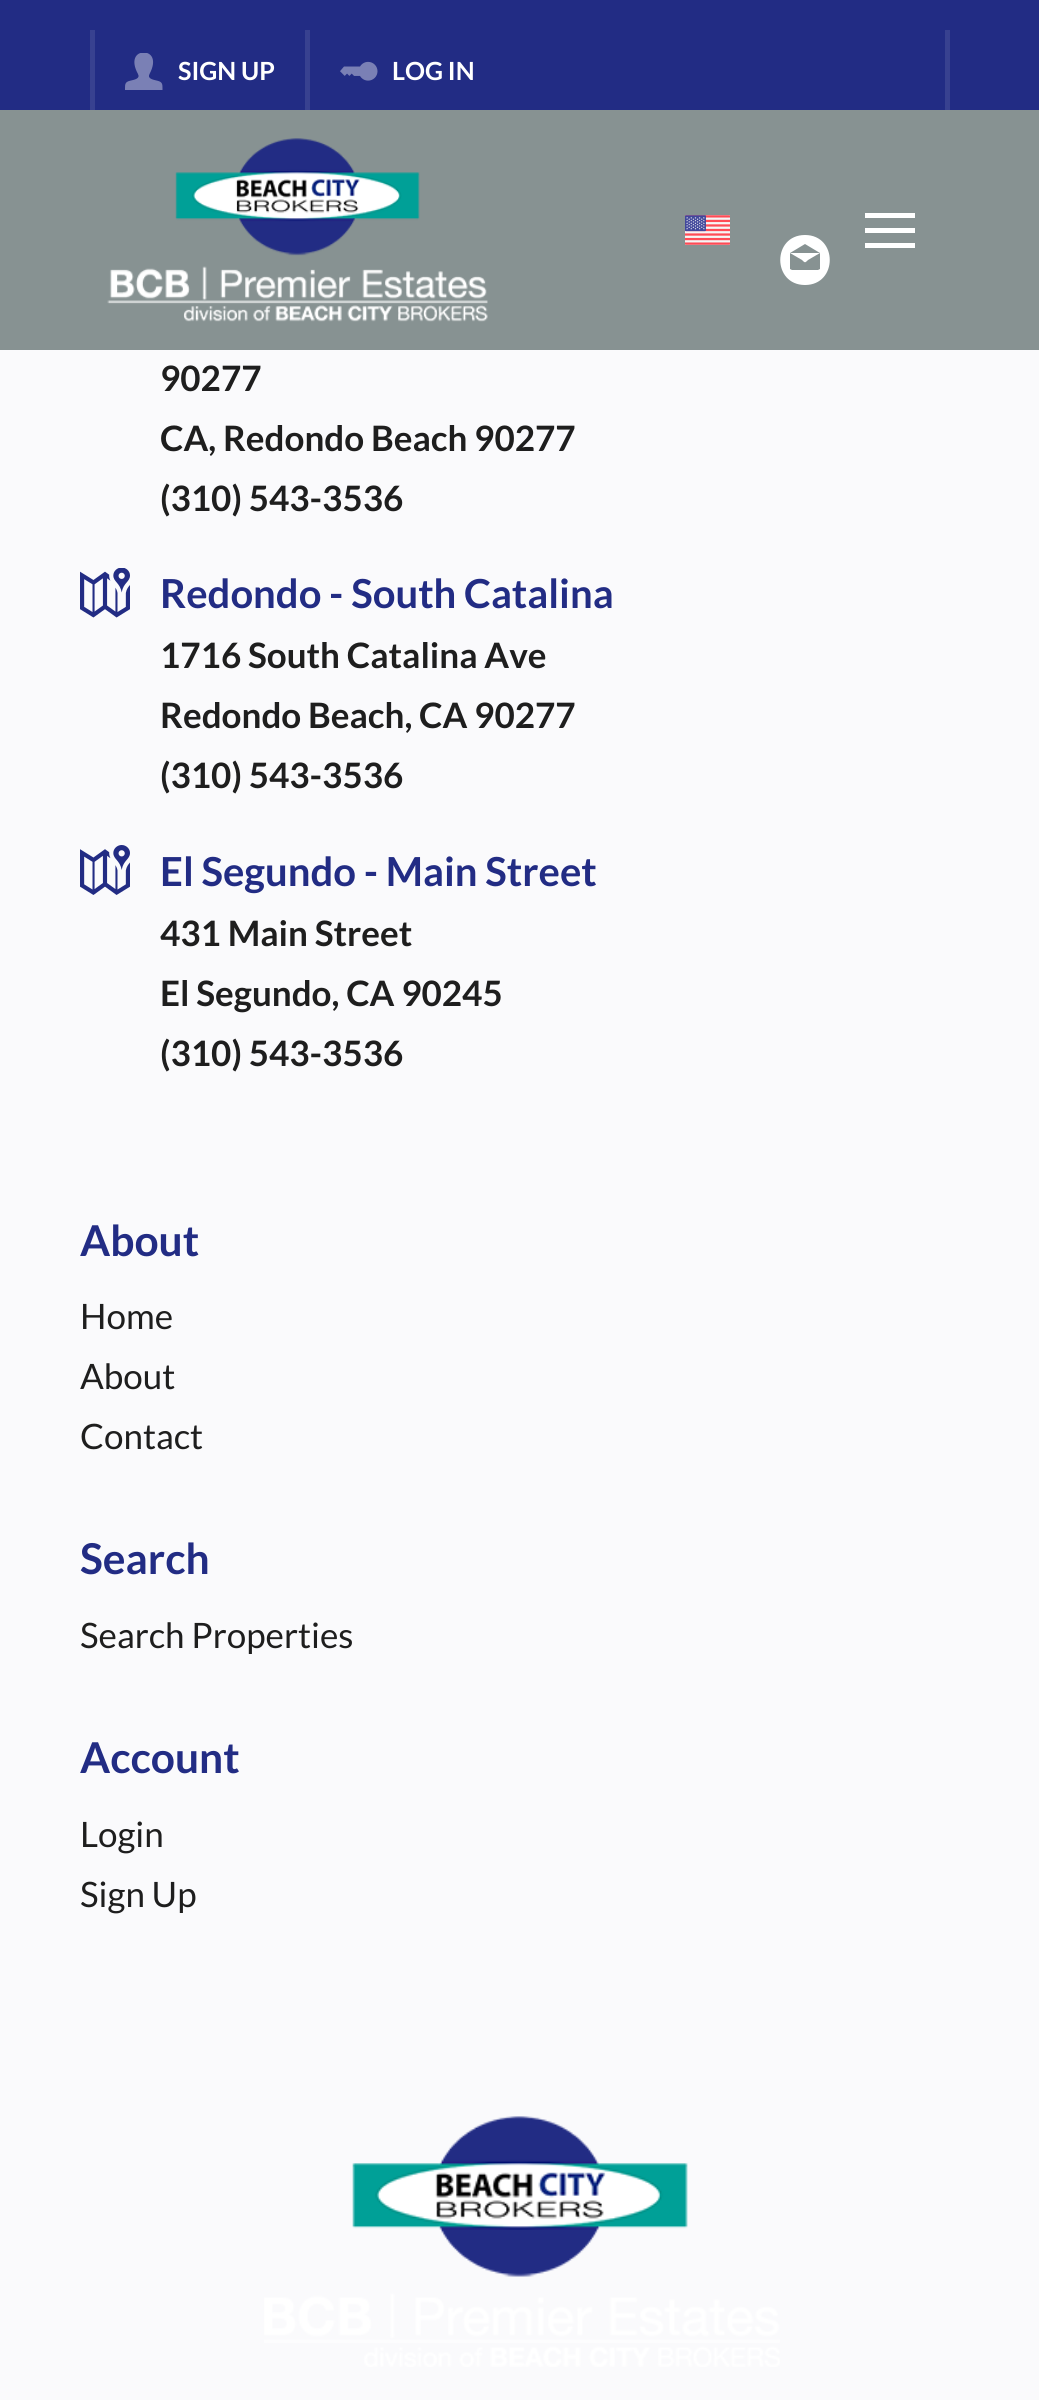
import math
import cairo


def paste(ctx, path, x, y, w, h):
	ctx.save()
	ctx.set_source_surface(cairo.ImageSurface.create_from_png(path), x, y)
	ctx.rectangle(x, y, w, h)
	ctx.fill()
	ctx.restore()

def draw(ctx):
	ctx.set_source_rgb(0.98, 0.98, 0.988)
	ctx.paint()
	ctx.set_source_rgb(0.133, 0.173, 0.518)
	ctx.rectangle(0, 0, 1039, 110)
	ctx.fill()
	ctx.set_source_rgb(0.22, 0.255, 0.565)
	ctx.rectangle(945, 30, 5, 80)
	ctx.rectangle(90, 30, 5, 80)
	ctx.fill()
	paste(ctx, 'media/1.png', 125, 53, 38, 37)
	ctx.select_font_face('Lato', cairo.FONT_SLANT_NORMAL, cairo.FONT_WEIGHT_BOLD)
	ctx.set_font_size(25)
	ctx.set_source_rgb(1, 1, 1)
	ctx.move_to(178, 80)
	ctx.show_text('SIGN UP')
	ctx.set_source_rgb(0.22, 0.255, 0.565)
	ctx.rectangle(305, 30, 5, 80)
	ctx.fill()
	paste(ctx, 'media/2.png', 340, 61, 38, 20)
	ctx.set_source_rgb(1, 1, 1)
	ctx.move_to(392, 80)
	ctx.show_text('LOG IN')
	ctx.set_source_rgb(0.529, 0.573, 0.573)
	ctx.rectangle(0, 110, 1039, 240)
	ctx.fill()
	paste(ctx, 'media/3.png', 107, 138, 381, 184)
	paste(ctx, 'media/4.png', 685, 215, 45, 30)
	ctx.set_source_rgb(1, 1, 1)
	ctx.rectangle(865, 213, 50, 5)
	ctx.rectangle(865, 228, 50, 5)
	ctx.rectangle(865, 243, 50, 5)
	ctx.fill()
	ctx.new_path()
	ctx.move_to(805, 235)
	ctx.curve_to(772, 235, 772, 285, 805, 285)
	ctx.curve_to(838, 285, 838, 235, 805, 235)
	ctx.close_path()
	ctx.move_to(805, 244)
	ctx.line_to(820, 253)
	ctx.line_to(790, 253)
	ctx.close_path()
	ctx.move_to(820, 268)
	ctx.line_to(820, 269)
	ctx.line_to(818, 270)
	ctx.line_to(792, 270)
	ctx.line_to(790, 269)
	ctx.curve_to(790, 268, 790, 255, 790, 253)
	ctx.line_to(802, 260)
	ctx.curve_to(805, 263, 805, 263, 808, 260)
	ctx.line_to(820, 253)
	ctx.close_path()
	ctx.fill()
	ctx.set_font_size(35)
	ctx.set_source_rgb(0.118, 0.118, 0.118)
	for x, y, s in [
		(160, 391, '90277'),
		(160, 451, 'CA, Redondo Beach 90277'),
		(160, 511, '(310) 543-3536'),
	]:
		ctx.move_to(x, y)
		ctx.show_text(s)
	paste(ctx, 'media/5.png', 80, 568, 50, 50)
	ctx.set_font_size(40)
	ctx.set_source_rgb(0.133, 0.173, 0.518)
	ctx.move_to(160, 608)
	ctx.show_text('Redondo - South Catalina')
	ctx.set_font_size(35)
	ctx.set_source_rgb(0.118, 0.118, 0.118)
	for x, y, s in [
		(160, 668, '1716 South Catalina Ave'),
		(160, 728, 'Redondo Beach, CA 90277'),
		(160, 788, '(310) 543-3536'),
	]:
		ctx.move_to(x, y)
		ctx.show_text(s)
	paste(ctx, 'media/6.png', 80, 845, 50, 50)
	ctx.set_font_size(40)
	ctx.set_source_rgb(0.133, 0.173, 0.518)
	ctx.move_to(160, 886)
	ctx.show_text('El Segundo - Main Street')
	ctx.set_font_size(35)
	ctx.set_source_rgb(0.118, 0.118, 0.118)
	for x, y, s in [
		(160, 946, '431 Main Street'),
		(160, 1006, 'El Segundo, CA 90245'),
		(160, 1066, '(310) 543-3536'),
	]:
		ctx.move_to(x, y)
		ctx.show_text(s)
	ctx.set_font_size(42.5)
	ctx.set_source_rgb(0.133, 0.173, 0.518)
	ctx.move_to(80, 1256)
	ctx.show_text('About')
	ctx.select_font_face('Lato')
	ctx.set_font_size(35)
	ctx.set_source_rgb(0.118, 0.118, 0.118)
	for x, y, s in [
		(80, 1329, 'Home'),
		(80, 1389, 'About'),
		(80, 1449, 'Contact'),
	]:
		ctx.move_to(x, y)
		ctx.show_text(s)
	ctx.select_font_face('Lato', cairo.FONT_SLANT_NORMAL, cairo.FONT_WEIGHT_BOLD)
	ctx.set_font_size(42.5)
	ctx.set_source_rgb(0.133, 0.173, 0.518)
	ctx.move_to(80, 1574)
	ctx.show_text('Search')
	ctx.select_font_face('Lato')
	ctx.set_font_size(35)
	ctx.set_source_rgb(0.118, 0.118, 0.118)
	ctx.move_to(80, 1648)
	ctx.show_text('Search Properties')
	ctx.select_font_face('Lato', cairo.FONT_SLANT_NORMAL, cairo.FONT_WEIGHT_BOLD)
	ctx.set_font_size(42.5)
	ctx.set_source_rgb(0.133, 0.173, 0.518)
	ctx.move_to(80, 1773)
	ctx.show_text('Account')
	ctx.select_font_face('Lato')
	ctx.set_font_size(35)
	ctx.set_source_rgb(0.118, 0.118, 0.118)
	ctx.move_to(80, 1847)
	ctx.show_text('Login')
	ctx.move_to(80, 1907)
	ctx.show_text('Sign Up')
	paste(ctx, 'media/7.png', 264, 2116, 516, 251)


surface = cairo.ImageSurface(cairo.FORMAT_RGB24, 1039, 2400)
ctx = cairo.Context(surface)
options = cairo.FontOptions()
options.set_hint_metrics(cairo.HINT_METRICS_OFF)
options.set_hint_style(cairo.HINT_STYLE_NONE)
ctx.set_font_options(options)
ctx.set_miter_limit(4)
draw(ctx)
surface.write_to_png('image.png')
